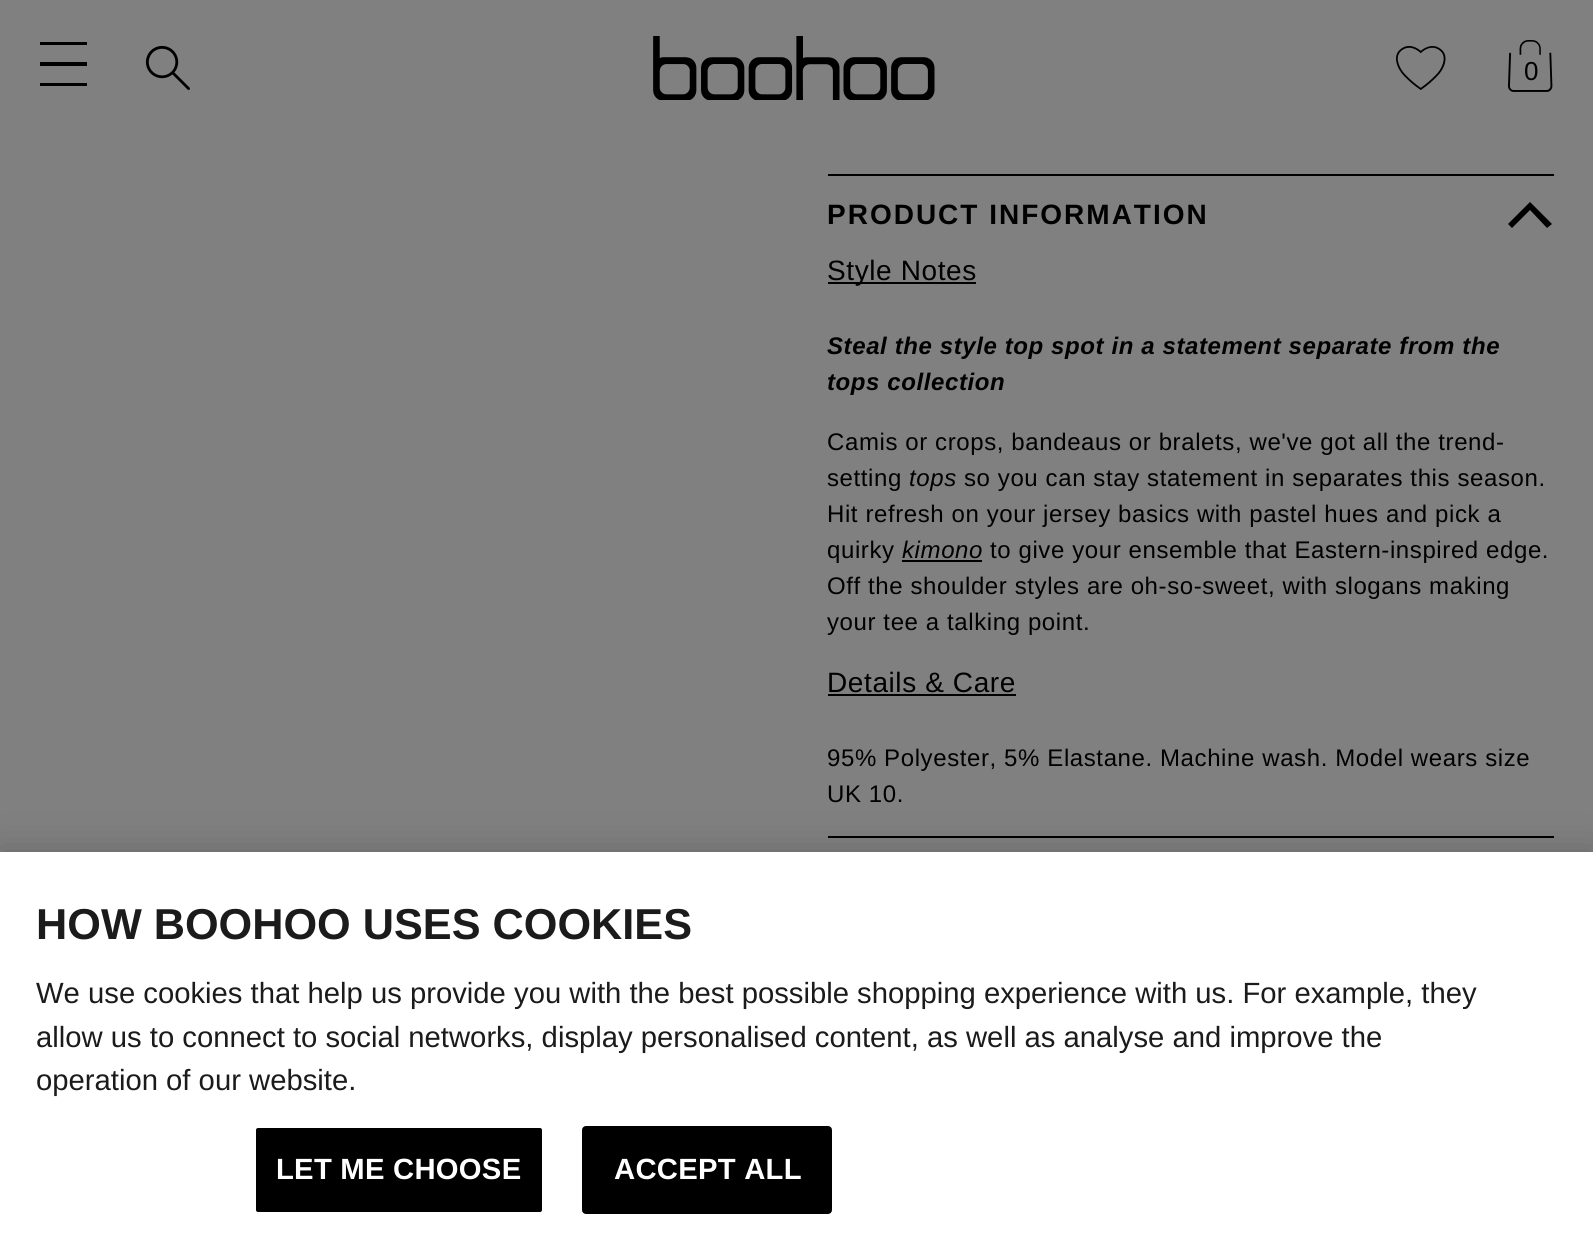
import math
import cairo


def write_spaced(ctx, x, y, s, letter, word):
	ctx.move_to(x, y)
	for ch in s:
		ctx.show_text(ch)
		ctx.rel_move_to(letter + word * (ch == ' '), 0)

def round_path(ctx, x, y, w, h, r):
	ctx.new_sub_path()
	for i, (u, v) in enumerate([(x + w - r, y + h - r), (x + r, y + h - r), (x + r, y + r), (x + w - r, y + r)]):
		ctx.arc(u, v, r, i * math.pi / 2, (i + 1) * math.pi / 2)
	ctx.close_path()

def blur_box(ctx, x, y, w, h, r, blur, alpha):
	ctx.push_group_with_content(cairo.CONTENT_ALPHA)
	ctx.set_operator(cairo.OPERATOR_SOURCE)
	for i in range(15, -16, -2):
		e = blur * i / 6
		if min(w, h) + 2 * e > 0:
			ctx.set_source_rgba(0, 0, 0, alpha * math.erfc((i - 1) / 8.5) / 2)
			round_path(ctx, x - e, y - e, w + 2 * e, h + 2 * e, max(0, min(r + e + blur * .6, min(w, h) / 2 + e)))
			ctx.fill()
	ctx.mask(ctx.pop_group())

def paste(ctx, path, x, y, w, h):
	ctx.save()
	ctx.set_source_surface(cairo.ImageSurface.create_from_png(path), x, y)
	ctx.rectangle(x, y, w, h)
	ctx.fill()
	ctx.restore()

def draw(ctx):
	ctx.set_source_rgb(0.502, 0.502, 0.502)
	ctx.paint()
	ctx.set_source_rgb(0, 0, 0)
	ctx.new_path()
	ctx.move_to(40, 42)
	ctx.line_to(40, 45)
	ctx.line_to(87, 45)
	ctx.line_to(87, 42)
	ctx.close_path()
	ctx.move_to(40, 66)
	ctx.line_to(87, 66)
	ctx.line_to(87, 62)
	ctx.line_to(40, 62)
	ctx.close_path()
	ctx.move_to(40, 86)
	ctx.line_to(87, 86)
	ctx.line_to(87, 83)
	ctx.line_to(40, 83)
	ctx.close_path()
	ctx.fill()
	paste(ctx, 'media/1.png', 145, 45, 45, 45)
	paste(ctx, 'media/2.png', 653, 36, 282, 64)
	paste(ctx, 'media/3.png', 1396, 46, 50, 44)
	paste(ctx, 'media/4.png', 1508, 40, 45, 52)
	ctx.select_font_face('Liberation Sans')
	ctx.set_font_size(26)
	write_spaced(ctx, 1524, 80, '0', 0.6, 0)
	ctx.rectangle(828, 174, 726, 2)
	ctx.fill()
	ctx.select_font_face('Liberation Sans', cairo.FONT_SLANT_NORMAL, cairo.FONT_WEIGHT_BOLD)
	ctx.set_font_size(28)
	write_spaced(ctx, 827, 224, 'PRODUCT INFORMATION', 2, 0)
	ctx.new_path()
	ctx.move_to(1512, 228)
	ctx.line_to(1530, 210)
	ctx.line_to(1547, 228)
	ctx.line_to(1552, 224)
	ctx.line_to(1530, 202)
	ctx.line_to(1508, 224)
	ctx.close_path()
	ctx.fill()
	ctx.rectangle(828, 282, 148, 2)
	ctx.fill()
	ctx.select_font_face('Liberation Sans')
	write_spaced(ctx, 827, 280, 'Style Notes', 0.6, 0)
	ctx.select_font_face('Liberation Sans', cairo.FONT_SLANT_ITALIC, cairo.FONT_WEIGHT_BOLD)
	ctx.set_font_size(24)
	write_spaced(ctx, 827, 354, 'Steal the style top spot in a statement separate from the', 0.6, 0)
	write_spaced(ctx, 827, 390, 'tops collection', 0.6, 0)
	ctx.select_font_face('Liberation Sans')
	write_spaced(ctx, 827, 450, 'Camis or crops, bandeaus or bralets, we\'ve got all the trend-', 0.6, 0)
	write_spaced(ctx, 827, 486, 'setting', 0.6, 0)
	ctx.select_font_face('Liberation Sans', cairo.FONT_SLANT_ITALIC)
	write_spaced(ctx, 909, 486, 'tops', 0.6, 0)
	ctx.select_font_face('Liberation Sans')
	for x, y, s in [
		(964, 486, 'so you can stay statement in separates this season.'),
		(827, 522, 'Hit refresh on your jersey basics with pastel hues and pick a'),
		(827, 558, 'quirky'),
	]:
		write_spaced(ctx, x, y, s, 0.6, 0)
	ctx.select_font_face('Liberation Sans', cairo.FONT_SLANT_ITALIC)
	write_spaced(ctx, 902, 558, 'kimono', 0.6, 0)
	ctx.rectangle(902, 560, 80, 2)
	ctx.fill()
	ctx.select_font_face('Liberation Sans')
	for x, y, s in [
		(990, 558, 'to give your ensemble that Eastern-inspired edge.'),
		(827, 594, 'Off the shoulder styles are oh-so-sweet, with slogans making'),
		(827, 630, 'your tee a talking point.'),
	]:
		write_spaced(ctx, x, y, s, 0.6, 0)
	ctx.set_font_size(28)
	write_spaced(ctx, 827, 692, 'Details & Care', 0.6, 0)
	ctx.rectangle(828, 694, 188, 2)
	ctx.fill()
	ctx.set_font_size(24)
	write_spaced(ctx, 827, 766, '95% Polyester, 5% Elastane. Machine wash. Model wears size', 0.6, 0)
	write_spaced(ctx, 827, 802, 'UK 10.', 0.6, 0)
	ctx.rectangle(828, 836, 726, 2)
	ctx.fill()
	ctx.set_source_rgb(0, 0, 0)
	blur_box(ctx, 0, 852, 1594, 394, 0, 18, 0.2)
	ctx.set_source_rgb(1, 1, 1)
	ctx.rectangle(0, 852, 1593, 393)
	ctx.fill()
	ctx.select_font_face('Liberation Sans', cairo.FONT_SLANT_NORMAL, cairo.FONT_WEIGHT_BOLD)
	ctx.set_font_size(43.25)
	ctx.set_source_rgb(0.106, 0.106, 0.106)
	ctx.move_to(36, 939)
	ctx.show_text('HOW BOOHOO USES COOKIES')
	ctx.select_font_face('Liberation Sans')
	ctx.set_font_size(29.25)
	for x, y, s in [
		(36, 1003, 'We use cookies that help us provide you with the best possible shopping experience with us. For example, they'),
		(36, 1047, 'allow us to connect to social networks, display personalised content, as well as analyse and improve the'),
		(36, 1090, 'operation of our website.'),
	]:
		ctx.move_to(x, y)
		ctx.show_text(s)
	ctx.set_source_rgb(0, 0, 0)
	round_path(ctx, 255, 1127, 288, 86, 3)
	ctx.fill_preserve()
	ctx.set_source_rgb(1, 1, 1)
	ctx.stroke()
	ctx.select_font_face('Liberation Sans', cairo.FONT_SLANT_NORMAL, cairo.FONT_WEIGHT_BOLD)
	write_spaced(ctx, 276, 1179, 'LET ME CHOOSE', 0.25, 0)
	ctx.set_source_rgb(0, 0, 0)
	round_path(ctx, 583, 1127, 248, 86, 3)
	ctx.fill_preserve()
	ctx.stroke()
	ctx.set_source_rgb(1, 1, 1)
	write_spaced(ctx, 614, 1179, 'ACCEPT ALL', 0.25, 0)


surface = cairo.ImageSurface(cairo.FORMAT_RGB24, 1593, 1245)
ctx = cairo.Context(surface)
options = cairo.FontOptions()
options.set_hint_metrics(cairo.HINT_METRICS_OFF)
options.set_hint_style(cairo.HINT_STYLE_NONE)
ctx.set_font_options(options)
ctx.set_miter_limit(4)
draw(ctx)
surface.write_to_png('image.png')
